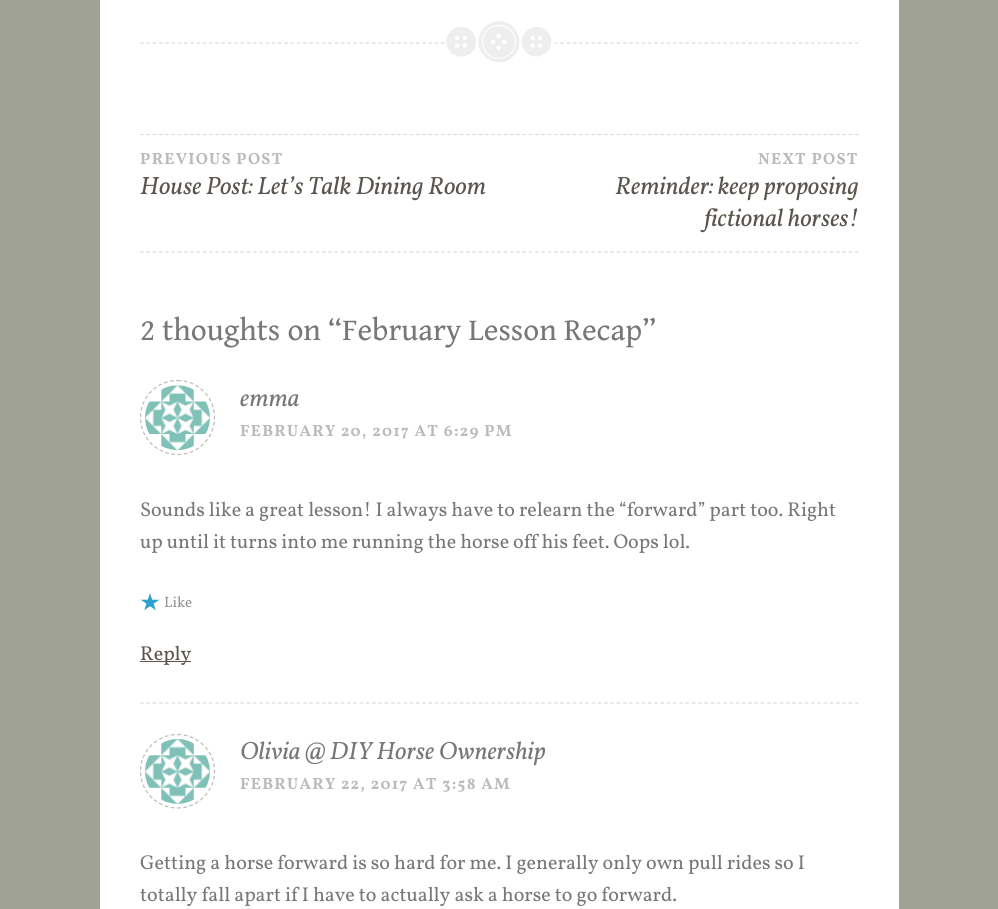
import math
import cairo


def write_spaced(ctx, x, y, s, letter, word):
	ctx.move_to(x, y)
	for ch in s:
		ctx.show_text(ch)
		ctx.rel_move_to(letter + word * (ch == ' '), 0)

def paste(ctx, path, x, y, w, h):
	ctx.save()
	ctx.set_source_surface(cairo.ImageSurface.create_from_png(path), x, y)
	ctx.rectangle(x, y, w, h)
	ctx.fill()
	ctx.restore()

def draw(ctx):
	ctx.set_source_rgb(0.627, 0.635, 0.584)
	ctx.paint()
	ctx.set_source_rgb(1, 1, 1)
	ctx.rectangle(100, 0, 799, 909)
	ctx.fill()
	ctx.new_path()
	ctx.move_to(140, 43)
	ctx.line_to(859, 43)
	ctx.set_source_rgb(0.867, 0.867, 0.867)
	ctx.set_line_width(1.2)
	ctx.set_dash([3.75, 2.52])
	ctx.stroke()
	ctx.set_source_rgb(1, 1, 1)
	ctx.rectangle(447, 42, 108, 2)
	ctx.fill()
	paste(ctx, 'media/1.png', 446, 21, 106, 42)
	ctx.new_path()
	ctx.move_to(140, 134.5)
	ctx.line_to(859, 134.5)
	ctx.set_source_rgb(0.867, 0.867, 0.867)
	ctx.stroke()
	ctx.new_path()
	ctx.move_to(140, 252)
	ctx.line_to(859, 252)
	ctx.stroke()
	ctx.select_font_face('Vollkorn', cairo.FONT_SLANT_NORMAL, cairo.FONT_WEIGHT_BOLD)
	ctx.set_font_size(16.25)
	ctx.set_source_rgb(0.733, 0.733, 0.733)
	write_spaced(ctx, 140, 164, 'PREVIOUS POST', 1.25, 0)
	ctx.select_font_face('Vollkorn', cairo.FONT_SLANT_ITALIC)
	ctx.set_font_size(25)
	ctx.set_source_rgb(0.349, 0.333, 0.306)
	ctx.move_to(140, 194)
	ctx.show_text('House Post: Let’s Talk Dining Room')
	ctx.select_font_face('Vollkorn', cairo.FONT_SLANT_NORMAL, cairo.FONT_WEIGHT_BOLD)
	ctx.set_font_size(16.25)
	ctx.set_source_rgb(0.733, 0.733, 0.733)
	write_spaced(ctx, 758, 164, 'NEXT POST', 1.25, 0)
	ctx.select_font_face('Vollkorn', cairo.FONT_SLANT_ITALIC)
	ctx.set_font_size(25)
	ctx.set_source_rgb(0.349, 0.333, 0.306)
	ctx.move_to(615, 194)
	ctx.show_text('Reminder: keep proposing')
	ctx.move_to(704, 226)
	ctx.show_text('fictional horses!')
	ctx.select_font_face('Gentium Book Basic')
	ctx.set_font_size(31.25)
	ctx.set_source_rgb(0.467, 0.467, 0.467)
	ctx.move_to(140, 340)
	ctx.show_text('2 thoughts on “February Lesson Recap”')
	ctx.new_path()
	ctx.move_to(177.5, 380.5)
	ctx.curve_to(198, 380.5, 214.5, 397, 214.5, 417.5)
	ctx.curve_to(214.5, 438, 198, 454.5, 177.5, 454.5)
	ctx.curve_to(157, 454.5, 140.5, 438, 140.5, 417.5)
	ctx.curve_to(140.5, 397, 157, 380.5, 177.5, 380.5)
	ctx.close_path()
	ctx.set_source_rgb(0.733, 0.733, 0.733)
	ctx.set_dash([3.75, 2.5])
	ctx.stroke()
	paste(ctx, 'media/2.png', 145, 385, 65, 65)
	ctx.select_font_face('Vollkorn', cairo.FONT_SLANT_ITALIC)
	ctx.set_font_size(25)
	ctx.set_source_rgb(0.467, 0.467, 0.467)
	ctx.move_to(240, 406)
	ctx.show_text('emma')
	ctx.select_font_face('Vollkorn', cairo.FONT_SLANT_NORMAL, cairo.FONT_WEIGHT_BOLD)
	ctx.set_font_size(16.25)
	ctx.set_source_rgb(0.733, 0.733, 0.733)
	write_spaced(ctx, 240, 436, 'FEBRUARY 20, 2017 AT 6:29 PM', 1.25, 0)
	ctx.select_font_face('Vollkorn')
	ctx.set_font_size(20)
	ctx.set_source_rgb(0.467, 0.467, 0.467)
	ctx.move_to(140, 516)
	ctx.show_text('Sounds like a great lesson! I always have to relearn the “forward” part too. Right')
	ctx.move_to(140, 548)
	ctx.show_text('up until it turns into me running the horse off his feet. Oops lol.')
	paste(ctx, 'media/3.png', 140, 593, 20, 18)
	ctx.set_font_size(15)
	ctx.set_source_rgb(0.573, 0.573, 0.573)
	ctx.move_to(164, 607)
	ctx.show_text('Like')
	ctx.set_source_rgb(0.349, 0.333, 0.306)
	ctx.rectangle(140, 661, 51, 1)
	ctx.fill()
	ctx.set_font_size(20)
	ctx.move_to(140, 660)
	ctx.show_text('Reply')
	ctx.new_path()
	ctx.move_to(140, 703)
	ctx.line_to(859, 703)
	ctx.set_source_rgb(0.867, 0.867, 0.867)
	ctx.set_dash([3.75, 2.52])
	ctx.stroke()
	ctx.new_path()
	ctx.move_to(177.5, 734.5)
	ctx.curve_to(198, 734.5, 214.5, 751, 214.5, 771)
	ctx.curve_to(214.5, 791.5, 198, 808, 177.5, 808)
	ctx.curve_to(157, 808, 140.5, 791.5, 140.5, 771)
	ctx.curve_to(140.5, 751, 157, 734.5, 177.5, 734.5)
	ctx.close_path()
	ctx.set_source_rgb(0.733, 0.733, 0.733)
	ctx.set_dash([3.75, 2.5])
	ctx.stroke()
	paste(ctx, 'media/4.png', 145, 739, 65, 65)
	ctx.select_font_face('Vollkorn', cairo.FONT_SLANT_ITALIC)
	ctx.set_font_size(25)
	ctx.set_source_rgb(0.467, 0.467, 0.467)
	ctx.move_to(240, 759)
	ctx.show_text('Olivia @ DIY Horse Ownership')
	ctx.select_font_face('Vollkorn', cairo.FONT_SLANT_NORMAL, cairo.FONT_WEIGHT_BOLD)
	ctx.set_font_size(16.25)
	ctx.set_source_rgb(0.733, 0.733, 0.733)
	write_spaced(ctx, 240, 789, 'FEBRUARY 22, 2017 AT 3:58 AM', 1.25, 0)
	ctx.select_font_face('Vollkorn')
	ctx.set_font_size(20)
	ctx.set_source_rgb(0.467, 0.467, 0.467)
	ctx.move_to(140, 869)
	ctx.show_text('Getting a horse forward is so hard for me. I generally only own pull rides so I')
	ctx.move_to(140, 901)
	ctx.show_text('totally fall apart if I have to actually ask a horse to go forward.')


surface = cairo.ImageSurface(cairo.FORMAT_RGB24, 998, 909)
ctx = cairo.Context(surface)
options = cairo.FontOptions()
options.set_hint_metrics(cairo.HINT_METRICS_OFF)
options.set_hint_style(cairo.HINT_STYLE_NONE)
ctx.set_font_options(options)
ctx.set_miter_limit(4)
draw(ctx)
surface.write_to_png('image.png')
